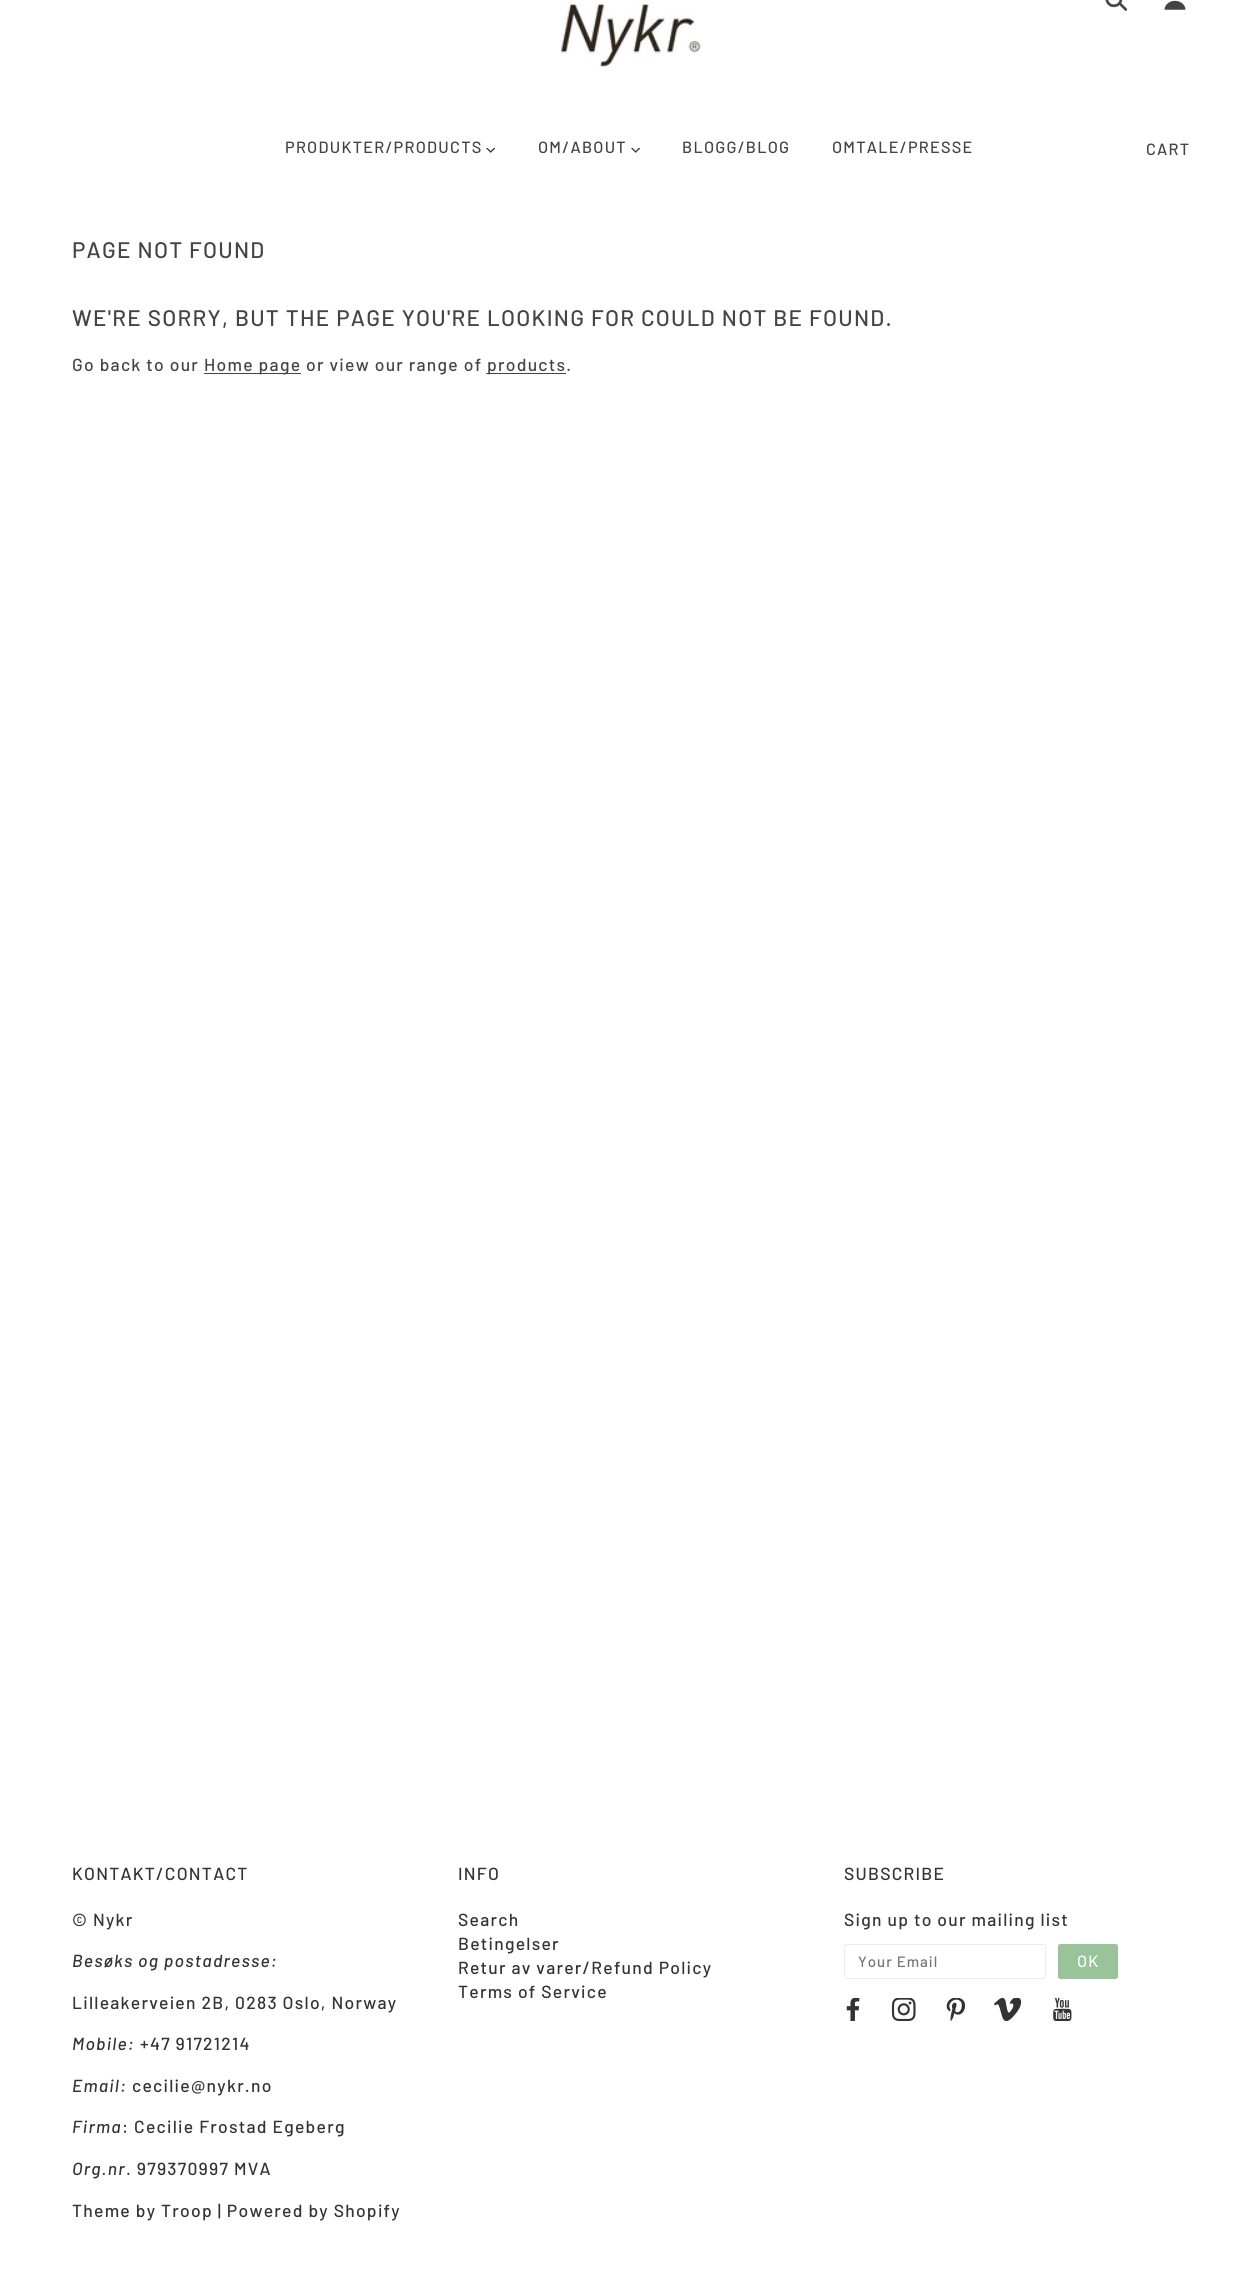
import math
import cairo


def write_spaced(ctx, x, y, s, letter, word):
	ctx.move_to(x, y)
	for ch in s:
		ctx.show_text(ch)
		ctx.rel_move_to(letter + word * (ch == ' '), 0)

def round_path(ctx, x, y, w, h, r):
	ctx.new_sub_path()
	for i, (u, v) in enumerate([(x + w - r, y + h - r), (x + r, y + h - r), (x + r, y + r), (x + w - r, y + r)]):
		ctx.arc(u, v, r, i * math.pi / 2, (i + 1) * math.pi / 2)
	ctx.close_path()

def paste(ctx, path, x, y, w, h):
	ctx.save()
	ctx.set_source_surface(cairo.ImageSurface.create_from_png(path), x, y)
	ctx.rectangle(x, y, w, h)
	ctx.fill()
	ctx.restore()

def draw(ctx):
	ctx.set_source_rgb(1, 1, 1)
	ctx.paint()
	paste(ctx, 'media/1.png', 561, 3, 140, 66)
	paste(ctx, 'media/2.png', 1105, 0, 23, 11)
	paste(ctx, 'media/3.png', 1164, 0, 22, 10)
	ctx.select_font_face('Barlow Medium')
	ctx.set_font_size(16.25)
	ctx.set_source_rgb(0.267, 0.267, 0.267)
	write_spaced(ctx, 285, 153, 'PRODUKTER/PRODUCTS', 1.25, 0)
	paste(ctx, 'media/4.png', 486, 148, 9, 5)
	write_spaced(ctx, 538, 153, 'OM/ABOUT', 1.25, 0)
	paste(ctx, 'media/4.png', 631, 148, 9, 5)
	for x, y, s in [
		(682, 153, 'BLOGG/BLOG'),
		(832, 153, 'OMTALE/PRESSE'),
		(1146, 155, 'CART'),
	]:
		write_spaced(ctx, x, y, s, 1.25, 0)
	ctx.set_font_size(22.5)
	write_spaced(ctx, 72, 258, 'PAGE NOT FOUND', 1.25, 0)
	write_spaced(ctx, 72, 326, 'WE\'RE SORRY, BUT THE PAGE YOU\'RE LOOKING FOR COULD NOT BE FOUND.', 1.25, 0)
	ctx.set_font_size(17.5)
	write_spaced(ctx, 72, 371, 'Go back to our', 1.25, 0)
	ctx.rectangle(204, 373, 97, 1)
	ctx.fill()
	write_spaced(ctx, 204, 371, 'Home page or view our range of', 1.25, 0)
	ctx.rectangle(486, 373, 80, 1)
	ctx.fill()
	write_spaced(ctx, 487, 371, 'products.', 1.25, 0)
	ctx.set_source_rgb(0.2, 0.2, 0.2)
	write_spaced(ctx, 72, 1880, 'KONTAKT/CONTACT', 1.25, 0)
	write_spaced(ctx, 72, 1926, '© Nykr', 1.25, 0)
	ctx.select_font_face('Barlow Medium', cairo.FONT_SLANT_ITALIC)
	write_spaced(ctx, 72, 1967, 'Besøks og postadresse:', 1.25, 0)
	ctx.select_font_face('Barlow Medium')
	write_spaced(ctx, 72, 2009, 'Lilleakerveien 2B, 0283 Oslo, Norway', 1.25, 0)
	ctx.select_font_face('Barlow Medium', cairo.FONT_SLANT_ITALIC)
	write_spaced(ctx, 72, 2050, 'Mobile:', 1.25, 0)
	ctx.select_font_face('Barlow Medium')
	write_spaced(ctx, 140, 2050, '+47 91721214', 1.25, 0)
	ctx.select_font_face('Barlow Medium', cairo.FONT_SLANT_ITALIC)
	write_spaced(ctx, 72, 2092, 'Email:', 1.25, 0)
	ctx.select_font_face('Barlow Medium')
	write_spaced(ctx, 132, 2092, 'cecilie@nykr.no', 1.25, 0)
	ctx.select_font_face('Barlow Medium', cairo.FONT_SLANT_ITALIC)
	write_spaced(ctx, 72, 2133, 'Firma', 1.25, 0)
	ctx.select_font_face('Barlow Medium')
	write_spaced(ctx, 122, 2133, ': Cecilie Frostad Egeberg', 1.25, 0)
	ctx.select_font_face('Barlow Medium', cairo.FONT_SLANT_ITALIC)
	write_spaced(ctx, 72, 2175, 'Org.nr', 1.25, 0)
	ctx.select_font_face('Barlow Medium')
	for x, y, s in [
		(126, 2175, '. 979370997 MVA'),
		(72, 2217, 'Theme by Troop | Powered by Shopify'),
		(458, 1880, 'INFO'),
		(458, 1926, 'Search'),
		(458, 1950, 'Betingelser'),
		(458, 1974, 'Retur av varer/Refund Policy'),
		(458, 1998, 'Terms of Service'),
		(844, 1880, 'SUBSCRIBE'),
		(844, 1926, 'Sign up to our mailing list'),
	]:
		write_spaced(ctx, x, y, s, 1.25, 0)
	round_path(ctx, 844.5, 1944.5, 201, 34, 2)
	ctx.set_source_rgb(0.922, 0.922, 0.922)
	ctx.set_line_width(1)
	ctx.stroke()
	ctx.set_font_size(15)
	ctx.set_source_rgb(0.459, 0.459, 0.459)
	write_spaced(ctx, 858, 1967, 'Your Email', 1, 0)
	ctx.set_source_rgb(0.6, 0.769, 0.604)
	round_path(ctx, 1058, 1944, 60, 35, 2.5)
	ctx.fill()
	ctx.set_font_size(16.25)
	ctx.set_source_rgb(1, 1, 1)
	write_spaced(ctx, 1077, 1967, 'OK', 1.25, 0)
	paste(ctx, 'media/5.png', 846, 1998, 14, 23)
	paste(ctx, 'media/6.png', 891, 1998, 25, 23)
	paste(ctx, 'media/7.png', 946, 1998, 20, 23)
	paste(ctx, 'media/8.png', 994, 1998, 28, 23)
	paste(ctx, 'media/9.png', 1053, 1998, 19, 23)


surface = cairo.ImageSurface(cairo.FORMAT_RGB24, 1258, 2296)
ctx = cairo.Context(surface)
options = cairo.FontOptions()
options.set_hint_metrics(cairo.HINT_METRICS_OFF)
options.set_hint_style(cairo.HINT_STYLE_NONE)
ctx.set_font_options(options)
ctx.set_miter_limit(4)
draw(ctx)
surface.write_to_png('image.png')
